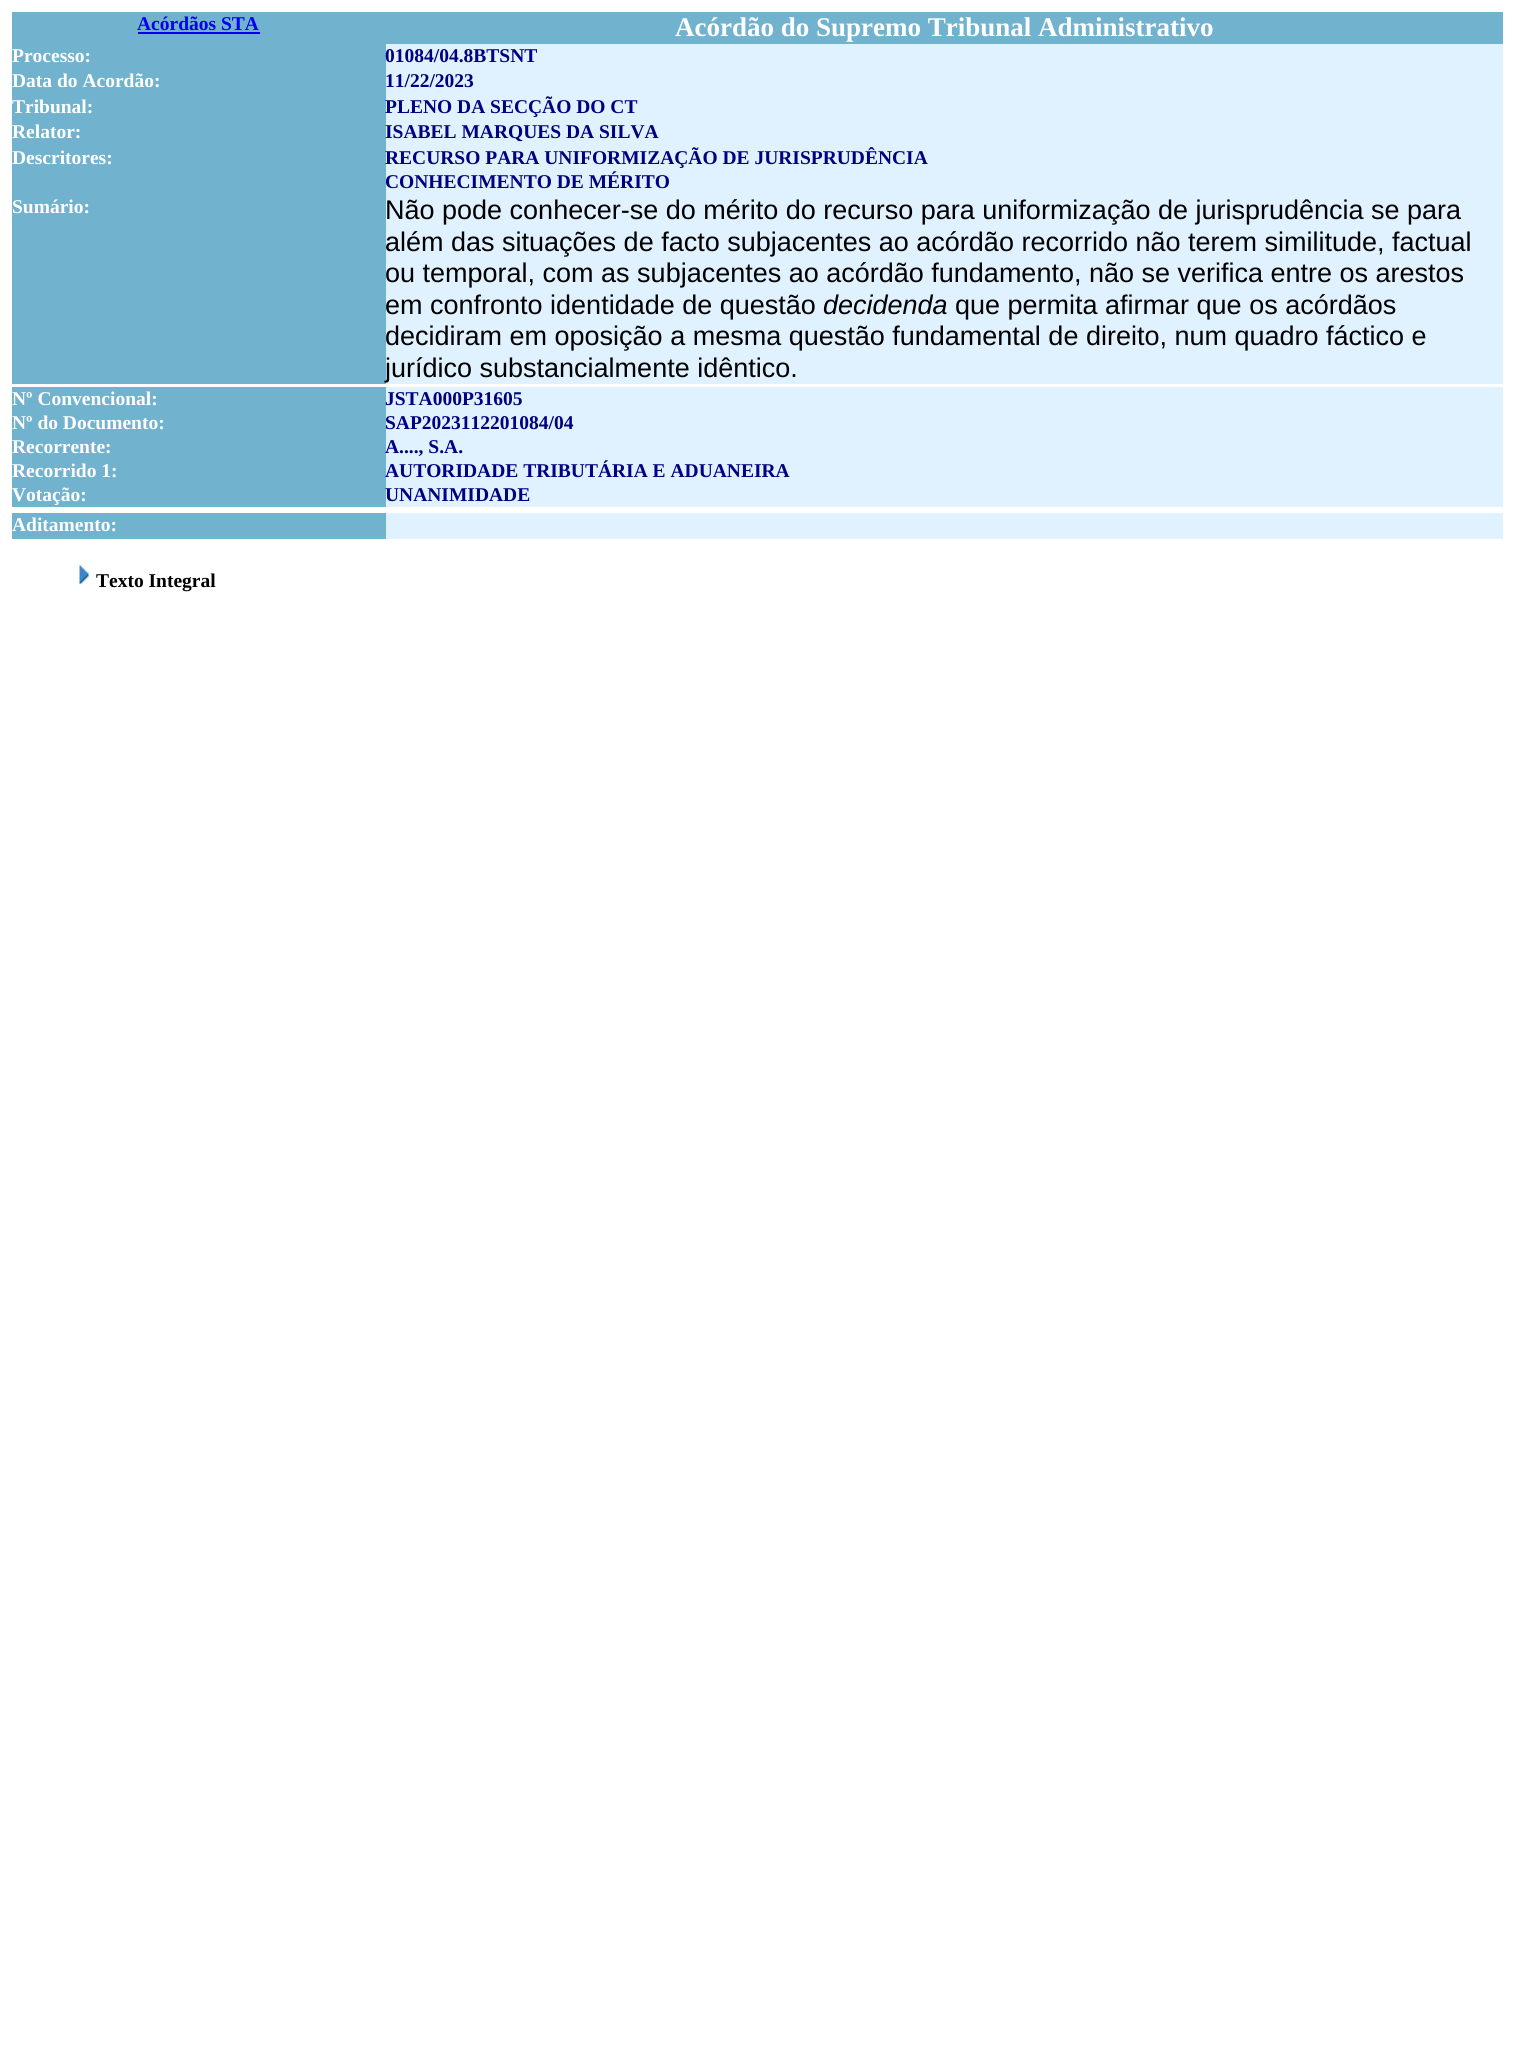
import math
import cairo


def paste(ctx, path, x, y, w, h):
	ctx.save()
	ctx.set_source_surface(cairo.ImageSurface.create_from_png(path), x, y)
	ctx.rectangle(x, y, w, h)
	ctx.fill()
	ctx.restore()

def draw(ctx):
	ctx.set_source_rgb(1, 1, 1)
	ctx.paint()
	ctx.set_source_rgb(0.443, 0.698, 0.812)
	ctx.rectangle(12, 12, 1491, 32)
	ctx.fill()
	ctx.select_font_face('Liberation Serif', cairo.FONT_SLANT_NORMAL, cairo.FONT_WEIGHT_BOLD)
	ctx.set_font_size(19.5)
	ctx.set_source_rgb(0, 0, 0.933)
	ctx.move_to(137, 30)
	ctx.show_text('Acórdãos STA')
	ctx.rectangle(138, 32, 122, 2)
	ctx.fill()
	ctx.set_font_size(27)
	ctx.set_source_rgb(1, 1, 1)
	ctx.move_to(675, 36)
	ctx.show_text('Acórdão do Supremo Tribunal Administrativo')
	ctx.set_source_rgb(0.443, 0.698, 0.812)
	ctx.rectangle(12, 44, 374, 340)
	ctx.fill()
	ctx.set_font_size(19.5)
	ctx.set_source_rgb(1, 1, 1)
	ctx.move_to(12, 62)
	ctx.show_text('Processo:')
	ctx.set_source_rgb(0.878, 0.945, 1)
	ctx.rectangle(386, 44, 1117, 340)
	ctx.fill()
	ctx.set_source_rgb(0, 0, 0.502)
	ctx.move_to(385, 62)
	ctx.show_text('01084/04.8BTSNT')
	ctx.set_source_rgb(1, 1, 1)
	ctx.move_to(12, 87)
	ctx.show_text('Data do Acordão:')
	ctx.set_source_rgb(0, 0, 0.502)
	ctx.move_to(385, 87)
	ctx.show_text('11/22/2023')
	ctx.set_source_rgb(1, 1, 1)
	ctx.move_to(12, 113)
	ctx.show_text('Tribunal:')
	ctx.set_source_rgb(0, 0, 0.502)
	ctx.move_to(385, 113)
	ctx.show_text('PLENO DA SECÇÃO DO CT')
	ctx.set_source_rgb(1, 1, 1)
	ctx.move_to(12, 138)
	ctx.show_text('Relator:')
	ctx.set_source_rgb(0, 0, 0.502)
	ctx.move_to(385, 138)
	ctx.show_text('ISABEL MARQUES DA SILVA')
	ctx.set_source_rgb(1, 1, 1)
	ctx.move_to(12, 164)
	ctx.show_text('Descritores:')
	ctx.set_source_rgb(0, 0, 0.502)
	ctx.move_to(385, 164)
	ctx.show_text('RECURSO PARA UNIFORMIZAÇÃO DE JURISPRUDÊNCIA')
	ctx.move_to(385, 188)
	ctx.show_text('CONHECIMENTO DE MÉRITO')
	ctx.set_source_rgb(1, 1, 1)
	ctx.move_to(12, 213)
	ctx.show_text('Sumário:')
	ctx.select_font_face('Liberation Sans')
	ctx.set_font_size(27)
	ctx.set_source_rgb(0, 0, 0)
	for x, y, s in [
		(385, 219, 'Não pode conhecer-se do mérito do recurso para uniformização de jurisprudência se para'),
		(385, 251, 'além das situações de facto subjacentes ao acórdão recorrido não terem similitude, factual'),
		(385, 282, 'ou temporal, com as subjacentes ao acórdão fundamento, não se verifica entre os arestos'),
		(385, 314, 'em confronto identidade de questão'),
	]:
		ctx.move_to(x, y)
		ctx.show_text(s)
	ctx.select_font_face('Liberation Sans', cairo.FONT_SLANT_ITALIC)
	ctx.move_to(823, 314)
	ctx.show_text('decidenda')
	ctx.select_font_face('Liberation Sans')
	for x, y, s in [
		(955, 314, 'que permita afirmar que os acórdãos'),
		(385, 345, 'decidiram em oposição a mesma questão fundamental de direito, num quadro fáctico e'),
		(385, 377, 'jurídico substancialmente idêntico.'),
	]:
		ctx.move_to(x, y)
		ctx.show_text(s)
	ctx.set_source_rgb(0.443, 0.698, 0.812)
	ctx.rectangle(12, 387, 374, 120)
	ctx.fill()
	ctx.select_font_face('Liberation Serif', cairo.FONT_SLANT_NORMAL, cairo.FONT_WEIGHT_BOLD)
	ctx.set_font_size(19.5)
	ctx.set_source_rgb(1, 1, 1)
	ctx.move_to(12, 405)
	ctx.show_text('Nº Convencional:')
	ctx.set_source_rgb(0.878, 0.945, 1)
	ctx.rectangle(386, 387, 1117, 120)
	ctx.fill()
	ctx.set_source_rgb(0, 0, 0.502)
	ctx.move_to(385, 405)
	ctx.show_text('JSTA000P31605')
	ctx.set_source_rgb(1, 1, 1)
	ctx.move_to(12, 429)
	ctx.show_text('Nº do Documento:')
	ctx.set_source_rgb(0, 0, 0.502)
	ctx.move_to(385, 429)
	ctx.show_text('SAP2023112201084/04')
	ctx.set_source_rgb(1, 1, 1)
	ctx.move_to(12, 453)
	ctx.show_text('Recorrente:')
	ctx.set_source_rgb(0, 0, 0.502)
	ctx.move_to(385, 453)
	ctx.show_text('A...., S.A.')
	ctx.set_source_rgb(1, 1, 1)
	ctx.move_to(12, 477)
	ctx.show_text('Recorrido 1:')
	ctx.set_source_rgb(0, 0, 0.502)
	ctx.move_to(385, 477)
	ctx.show_text('AUTORIDADE TRIBUTÁRIA E ADUANEIRA')
	ctx.set_source_rgb(1, 1, 1)
	ctx.move_to(12, 501)
	ctx.show_text('Votação:')
	ctx.set_source_rgb(0, 0, 0.502)
	ctx.move_to(385, 501)
	ctx.show_text('UNANIMIDADE')
	ctx.set_source_rgb(0.443, 0.698, 0.812)
	ctx.rectangle(12, 513, 374, 26)
	ctx.fill()
	ctx.set_source_rgb(1, 1, 1)
	ctx.move_to(12, 531)
	ctx.show_text('Aditamento:')
	ctx.set_source_rgb(0.878, 0.945, 1)
	ctx.rectangle(386, 513, 1117, 26)
	ctx.fill()
	paste(ctx, 'media/1.png', 79, 565, 10, 19)
	ctx.set_source_rgb(0, 0, 0)
	ctx.move_to(96, 587)
	ctx.show_text('Texto Integral')


surface = cairo.ImageSurface(cairo.FORMAT_RGB24, 1514, 2049)
ctx = cairo.Context(surface)
options = cairo.FontOptions()
options.set_hint_metrics(cairo.HINT_METRICS_OFF)
options.set_hint_style(cairo.HINT_STYLE_NONE)
ctx.set_font_options(options)
ctx.set_miter_limit(4)
draw(ctx)
surface.write_to_png('image.png')
